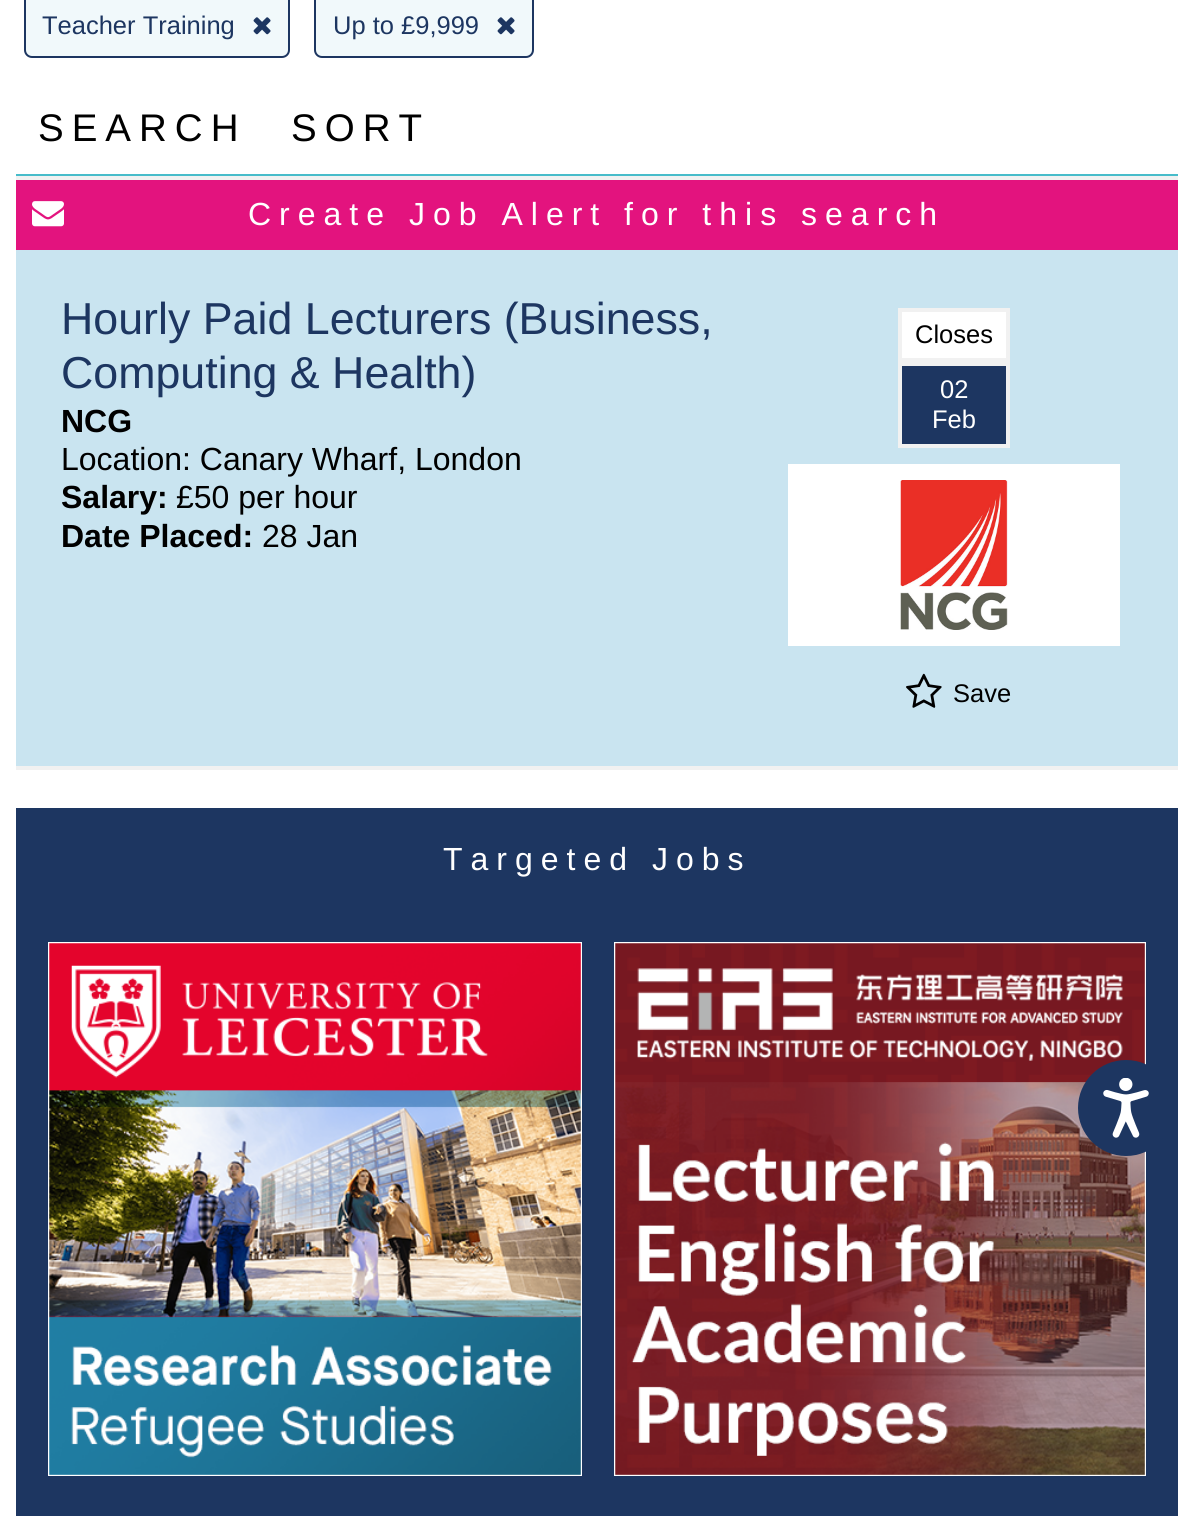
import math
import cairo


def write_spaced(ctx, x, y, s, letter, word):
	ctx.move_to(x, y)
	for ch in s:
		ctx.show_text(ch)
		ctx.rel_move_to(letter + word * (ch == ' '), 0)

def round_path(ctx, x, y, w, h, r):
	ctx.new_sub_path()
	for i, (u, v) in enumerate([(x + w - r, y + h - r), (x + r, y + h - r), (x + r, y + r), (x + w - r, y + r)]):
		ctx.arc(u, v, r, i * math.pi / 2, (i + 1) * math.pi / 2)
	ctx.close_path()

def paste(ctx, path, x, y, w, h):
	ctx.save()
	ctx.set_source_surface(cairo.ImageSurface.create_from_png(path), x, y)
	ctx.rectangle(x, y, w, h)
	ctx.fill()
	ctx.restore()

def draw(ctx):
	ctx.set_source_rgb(1, 1, 1)
	ctx.paint()
	ctx.set_source_rgb(0.945, 0.945, 0.945)
	ctx.rectangle(16, 176, 1162, 4)
	ctx.fill()
	ctx.set_source_rgb(0.945, 0.973, 0.984)
	round_path(ctx, 25, -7, 264, 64, 7)
	ctx.fill_preserve()
	ctx.set_source_rgb(0.114, 0.212, 0.38)
	ctx.stroke()
	ctx.select_font_face('Liberation Sans')
	ctx.set_font_size(25.5)
	ctx.move_to(42, 34)
	ctx.show_text('Teacher Training')
	paste(ctx, 'media/1.png', 253, 17, 18, 18)
	ctx.set_source_rgb(0.945, 0.973, 0.984)
	round_path(ctx, 315, -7, 218, 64, 7)
	ctx.fill_preserve()
	ctx.set_source_rgb(0.114, 0.212, 0.38)
	ctx.stroke()
	ctx.move_to(333, 34)
	ctx.show_text('Up to £9,999')
	paste(ctx, 'media/1.png', 497, 17, 18, 18)
	ctx.set_source_rgb(0.278, 0.737, 0.792)
	ctx.rectangle(452, 174, 726, 2)
	ctx.fill()
	ctx.rectangle(16, 174, 436, 2)
	ctx.fill()
	ctx.set_font_size(38.5)
	ctx.set_source_rgb(0, 0, 0)
	write_spaced(ctx, 38, 141, 'SEARCH', 8, 0)
	write_spaced(ctx, 291, 141, 'SORT', 8, 0)
	ctx.set_source_rgb(0.89, 0.075, 0.494)
	ctx.rectangle(16, 180, 1162, 70)
	ctx.fill()
	paste(ctx, 'media/2.png', 32, 201, 32, 26)
	ctx.set_font_size(32)
	ctx.set_source_rgb(1, 1, 1)
	write_spaced(ctx, 248, 225, 'Create Job Alert for this search', 8, 0)
	ctx.set_source_rgb(0.788, 0.894, 0.941)
	ctx.rectangle(16, 250, 1162, 516)
	ctx.fill()
	ctx.set_source_rgb(0.945, 0.945, 0.945)
	ctx.rectangle(16, 766, 1162, 4)
	ctx.fill()
	ctx.set_font_size(44.75)
	ctx.set_source_rgb(0.114, 0.212, 0.38)
	ctx.move_to(61, 334)
	ctx.show_text('Hourly Paid Lecturers (Business,')
	ctx.move_to(61, 388)
	ctx.show_text('Computing & Health)')
	ctx.select_font_face('Liberation Sans', cairo.FONT_SLANT_NORMAL, cairo.FONT_WEIGHT_BOLD)
	ctx.set_font_size(32)
	ctx.set_source_rgb(0, 0, 0)
	ctx.move_to(61, 432)
	ctx.show_text('NCG')
	ctx.select_font_face('Liberation Sans')
	ctx.move_to(61, 470)
	ctx.show_text('Location: Canary Wharf, London')
	ctx.select_font_face('Liberation Sans', cairo.FONT_SLANT_NORMAL, cairo.FONT_WEIGHT_BOLD)
	ctx.move_to(61, 508)
	ctx.show_text('Salary:')
	ctx.select_font_face('Liberation Sans')
	ctx.move_to(176, 508)
	ctx.show_text('£50 per hour')
	ctx.select_font_face('Liberation Sans', cairo.FONT_SLANT_NORMAL, cairo.FONT_WEIGHT_BOLD)
	ctx.move_to(61, 547)
	ctx.show_text('Date Placed:')
	ctx.select_font_face('Liberation Sans')
	ctx.move_to(262, 547)
	ctx.show_text('28 Jan')
	ctx.set_source_rgb(1, 1, 1)
	ctx.rectangle(900, 310, 108, 50)
	ctx.fill_preserve()
	ctx.set_source_rgb(0.945, 0.945, 0.945)
	ctx.set_line_width(4)
	ctx.stroke()
	ctx.set_font_size(25.5)
	ctx.set_source_rgb(0, 0, 0)
	ctx.move_to(915, 343)
	ctx.show_text('Closes')
	ctx.set_source_rgb(0.114, 0.212, 0.38)
	ctx.rectangle(900, 364, 108, 82)
	ctx.fill_preserve()
	ctx.set_source_rgb(0.945, 0.945, 0.945)
	ctx.stroke()
	ctx.set_source_rgb(1, 1, 1)
	ctx.move_to(940, 398)
	ctx.show_text('02')
	ctx.move_to(932, 428)
	ctx.show_text('Feb')
	ctx.rectangle(788, 464, 332, 182)
	ctx.fill()
	paste(ctx, 'media/3.png', 900, 480, 108, 150)
	paste(ctx, 'media/4.png', 906, 673, 36, 35)
	ctx.set_source_rgb(0, 0, 0)
	ctx.move_to(953, 702)
	ctx.show_text('Save')
	ctx.set_source_rgb(0.114, 0.212, 0.38)
	ctx.rectangle(16, 808, 1162, 708)
	ctx.fill()
	ctx.set_font_size(32)
	ctx.set_source_rgb(1, 1, 1)
	write_spaced(ctx, 443, 870, 'Targeted Jobs', 8, 0)
	paste(ctx, 'media/5.png', 48, 942, 534, 534)
	paste(ctx, 'media/6.png', 614, 942, 532, 534)
	ctx.set_source_rgb(0.114, 0.212, 0.38)
	ctx.arc(1126, 1108, 48, 0, 2 * math.pi)
	ctx.fill()
	paste(ctx, 'media/7.png', 1103, 1078, 46, 60)


surface = cairo.ImageSurface(cairo.FORMAT_RGB24, 1194, 1524)
ctx = cairo.Context(surface)
options = cairo.FontOptions()
options.set_hint_metrics(cairo.HINT_METRICS_OFF)
options.set_hint_style(cairo.HINT_STYLE_NONE)
ctx.set_font_options(options)
ctx.set_miter_limit(4)
draw(ctx)
surface.write_to_png('image.png')
